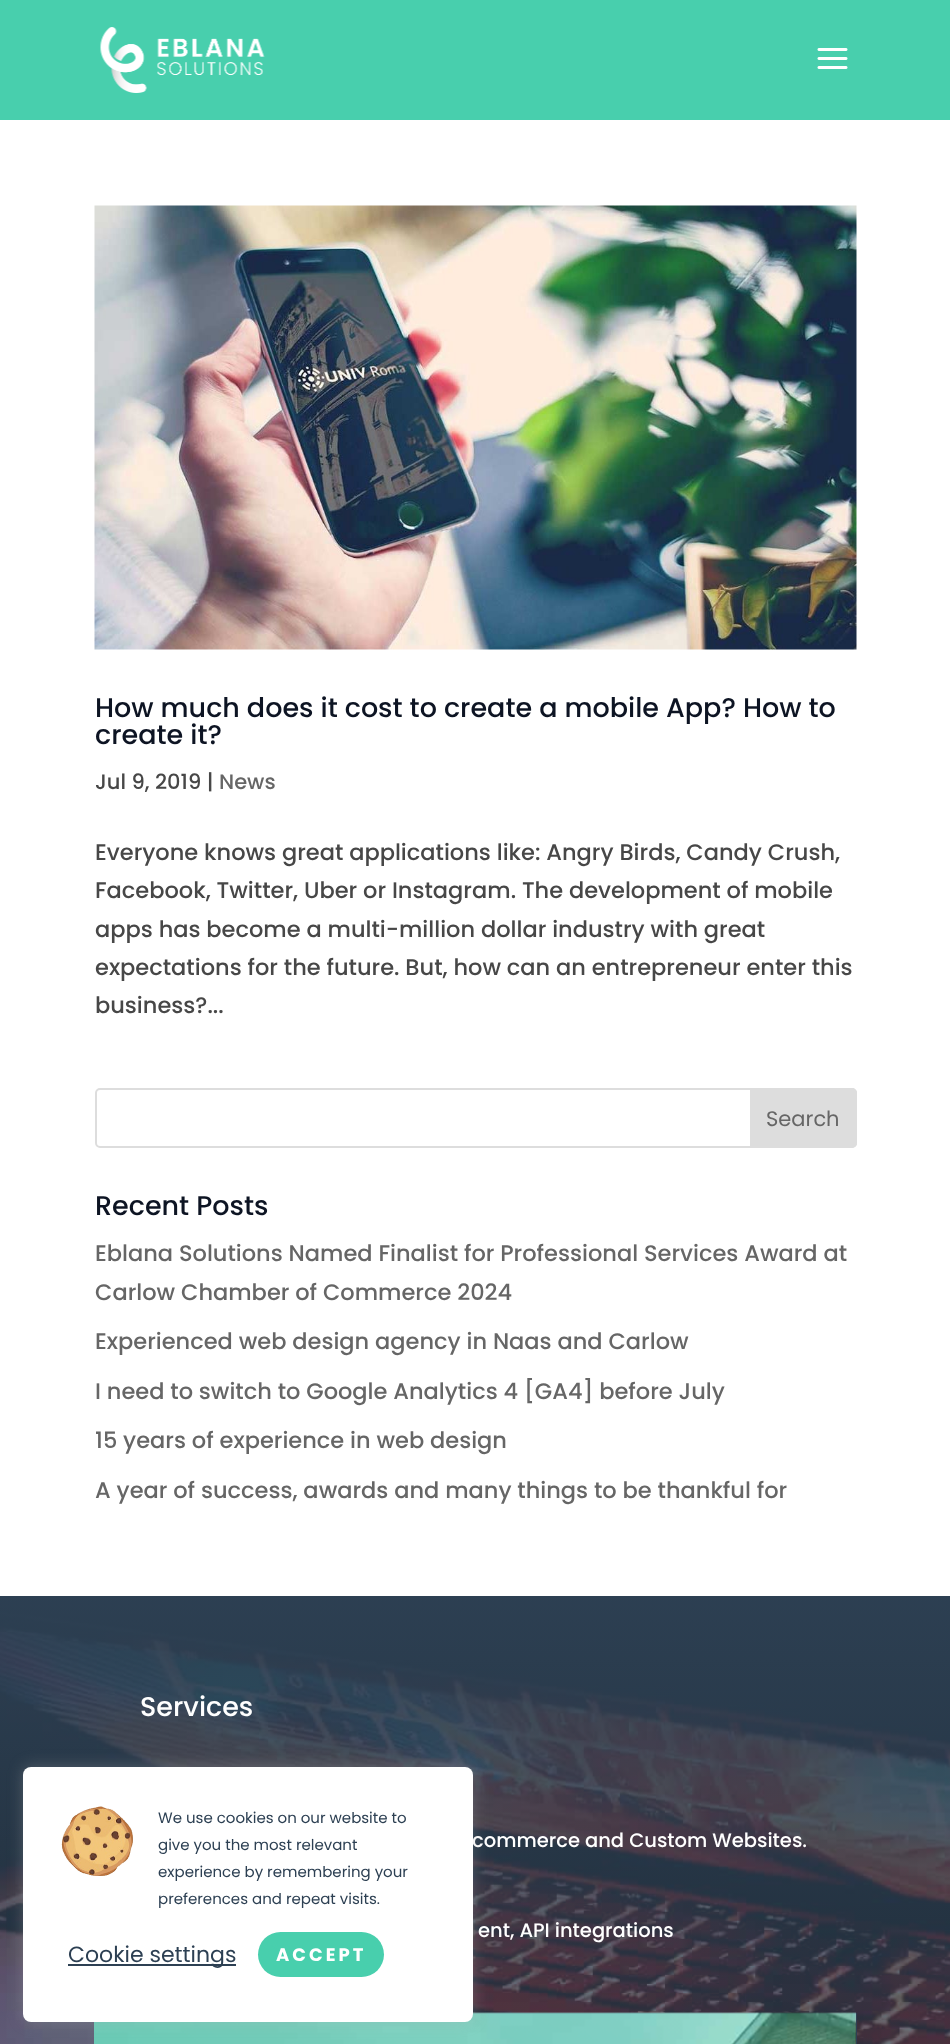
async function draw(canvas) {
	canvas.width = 950;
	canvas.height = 2044;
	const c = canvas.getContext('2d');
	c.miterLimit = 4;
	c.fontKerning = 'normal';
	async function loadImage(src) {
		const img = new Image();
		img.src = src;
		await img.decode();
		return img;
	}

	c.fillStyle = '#fff';
	c.fillRect(0, 0, 950, 2044);
	c.fillStyle = '#48cfad';
	c.fillRect(0, 0, 950, 120);
	c.drawImage(await loadImage('img1.png'), 100, 27, 165, 66);
	c.drawImage(await loadImage('img2.png'), 817, 48, 31, 21);
	c.drawImage(await loadImage('img3.png'), 94, 205, 763, 445);
	c.font = '500 27px Poppins';
	c.fillStyle = '#0d1423';
	c.fillText('How much does it cost to create a mobile App? How to', 95, 717);
	c.fillText('create it?', 95, 744);
	c.font = '500 21px Poppins';
	c.fillStyle = '#474747';
	c.fillText('Jul 9, 2019 |', 95, 789);
	c.fillStyle = '#666';
	c.fillText('News', 219, 789);
	c.font = '500 22.5px Poppins';
	c.fillStyle = '#474747';
	for (const [text, x, y] of [
		['Everyone knows great applications like: Angry Birds, Candy Crush,', 95, 860],
		['Facebook, Twitter, Uber or Instagram. The development of mobile', 95, 898],
		['apps has become a multi-million dollar industry with great', 95, 937],
		['expectations for the future. But, how can an entrepreneur enter this', 95, 975],
		['business?...', 95, 1013],
	]) {
		c.fillText(text, x, y);
	}
	c.beginPath();
	c.roundRect(96, 1089, 760, 58, 4);
	c.strokeStyle = '#ddd';
	c.lineWidth = 2;
	c.stroke();
	c.fillStyle = '#ddd';
	c.beginPath();
	c.roundRect(751, 1089, 105, 58, [0, 4, 4, 0]);
	c.fill();
	c.stroke();
	c.font = '21px Poppins';
	c.fillStyle = '#666';
	c.fillText('Search', 766, 1126);
	c.font = '500 27px Poppins';
	c.fillStyle = '#0d1423';
	c.fillText('Recent Posts', 95, 1215);
	c.font = '500 22.5px Poppins';
	c.fillStyle = '#666';
	for (const [text, x, y] of [
		['Eblana Solutions Named Finalist for Professional Services Award at', 95, 1261],
		['Carlow Chamber of Commerce 2024', 95, 1300],
		['Experienced web design agency in Naas and Carlow', 95, 1349],
		['I need to switch to Google Analytics 4 [GA4] before July', 95, 1399],
		['15 years of experience in web design', 95, 1448],
		['A year of success, awards and many things to be thankful for', 95, 1498],
	]) {
		c.fillText(text, x, y);
	}
	c.drawImage(await loadImage('img4.png'), 0, 1596, 950, 448);
	c.font = '500 27px Poppins';
	c.fillStyle = '#fff';
	c.fillText('Services', 140, 1716);
	c.font = '500 19.5px Poppins';
	c.fillText('commerce and Custom Websites.', 472, 1847);
	c.fillText('ent, API integrations', 478, 1937);
	c.fillStyle = '#2d4053';
	c.fillRect(473, 2013, 384, 31);
	c.drawImage(await loadImage('img5.png'), 94, 2012, 762, 32);
	c.fillStyle = '#acabab4d';
	c.filter = 'blur(7.5px)';
	c.beginPath();
	c.roundRect(23, 1766, 450, 255, 8);
	c.fill();
	c.filter = 'none';
	c.fillStyle = '#fff';
	c.beginPath();
	c.roundRect(23, 1767, 450, 255, 8);
	c.fill();
	c.drawImage(await loadImage('img6.png'), 61, 1806, 72, 70);
	c.font = '15px Poppins';
	c.fillStyle = '#2d4053';
	for (const [text, x, y] of [
		['We use cookies on our website to', 158, 1823],
		['give you the most relevant', 158, 1850],
		['experience by remembering your', 158, 1877],
		['preferences and repeat visits.', 158, 1904],
	]) {
		c.fillText(text, x, y);
	}
	c.fillRect(68, 1964, 168, 2);
	c.font = '22px Poppins';
	c.fillText('Cookie settings', 68, 1962);
	c.fillStyle = '#48cfad';
	c.beginPath();
	c.roundRect(258, 1932, 126, 45, 22.5);
	c.fill();
	c.letterSpacing = '3px';
	c.font = 'bold 18px Poppins';
	c.fillStyle = '#fff';
	c.fillText('ACCEPT', 276, 1961);
}

draw(document.querySelector('canvas'));
